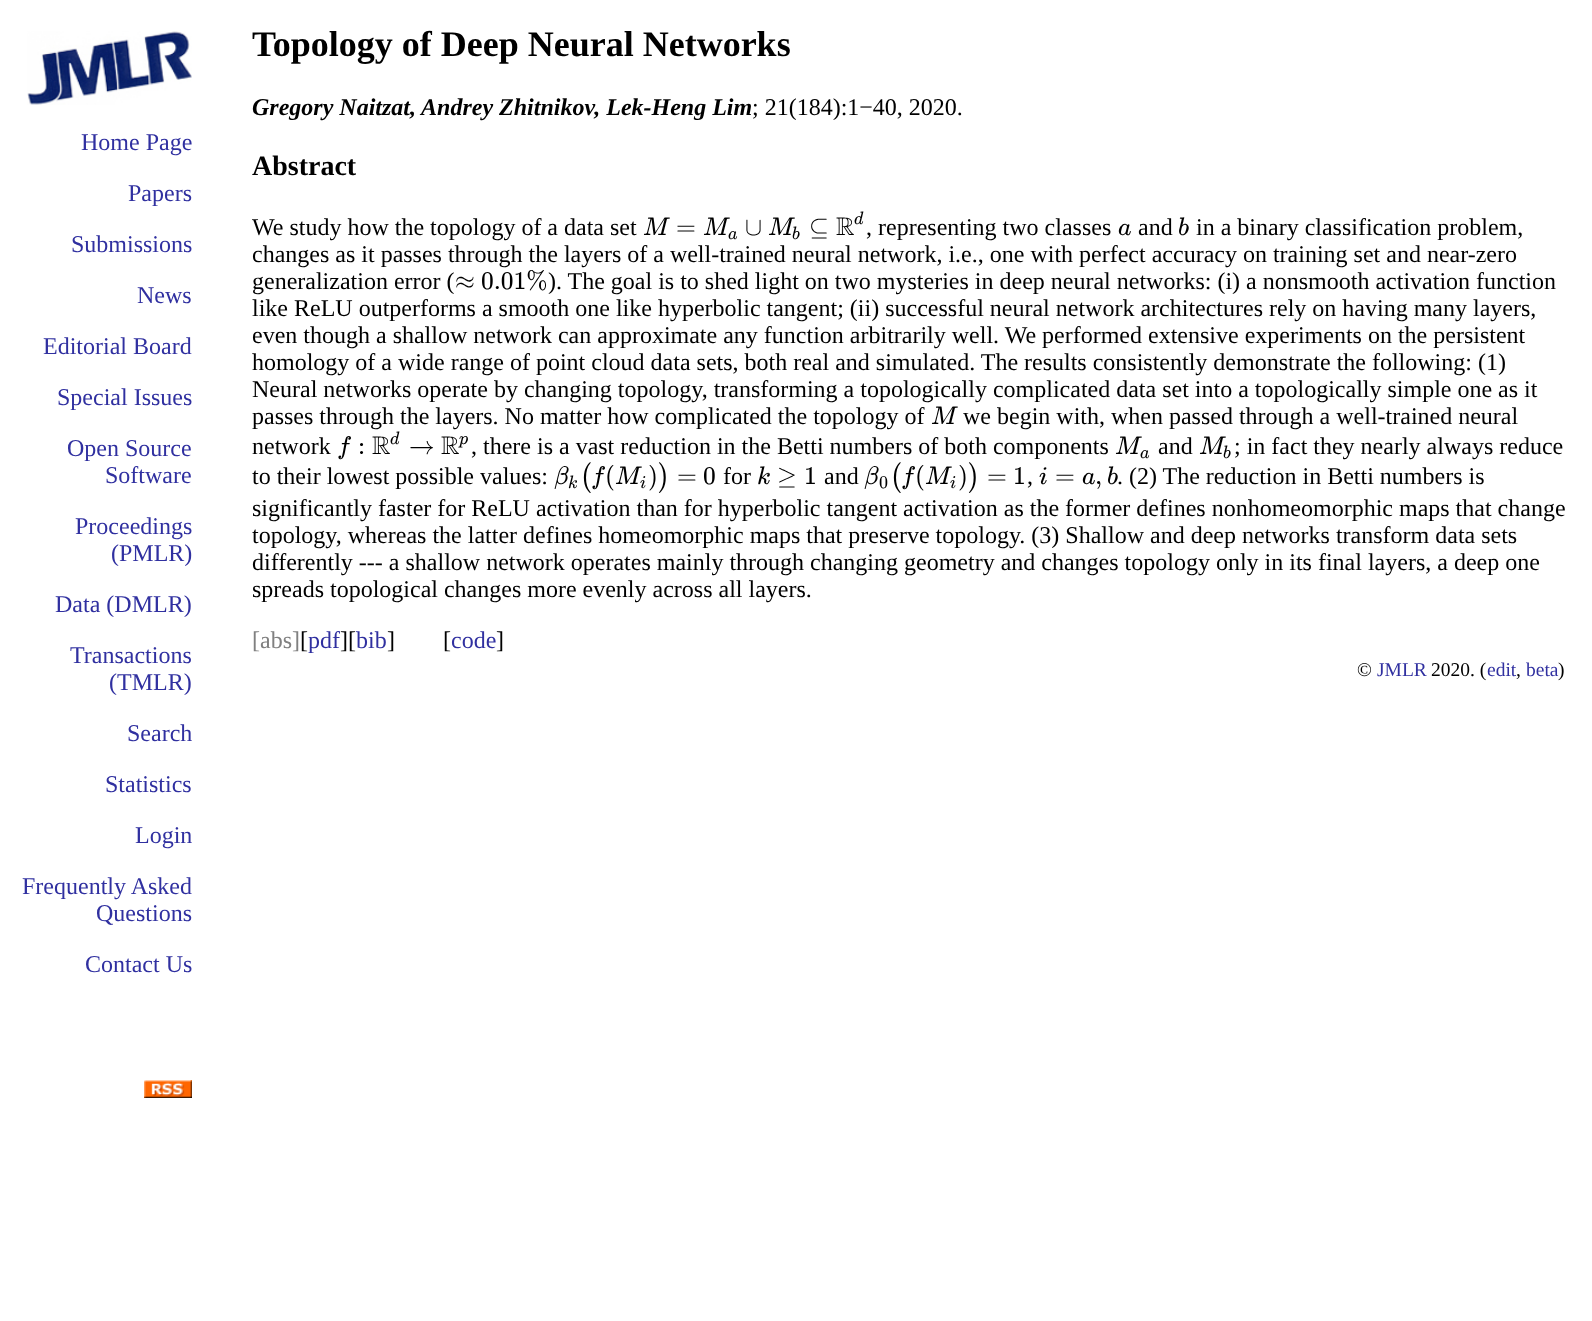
async function draw(canvas) {
	canvas.width = 1592;
	canvas.height = 1321;
	const c = canvas.getContext('2d');
	c.miterLimit = 4;
	c.fontKerning = 'normal';
	async function loadImage(src) {
		const img = new Image();
		img.src = src;
		await img.decode();
		return img;
	}

	c.fillStyle = '#fff';
	c.fillRect(0, 0, 1592, 1321);
	c.drawImage(await loadImage('img1.png'), 27, 31, 165, 74);
	c.font = '24px Liberation Serif';
	c.fillStyle = '#3030a0';
	for (const [text, x, y] of [
		['Home Page', 81, 150],
		['Papers', 128, 201],
		['Submissions', 71, 252],
		['News', 137, 303],
		['Editorial Board', 43, 354],
		['Special Issues', 57, 405],
		['Open Source', 67, 456],
		['Software', 105, 483],
		['Proceedings', 75, 534],
		['(PMLR)', 111, 561],
		['Data (DMLR)', 55, 612],
		['Transactions', 70, 663],
		['(TMLR)', 109, 690],
		['Search', 127, 741],
		['Statistics', 105, 792],
		['Login', 135, 843],
		['Frequently Asked', 22, 894],
		['Questions', 96, 921],
		['Contact Us', 85, 972],
	]) {
		c.fillText(text, x, y);
	}
	c.drawImage(await loadImage('img2.png'), 144, 1080, 48, 18);
	c.font = 'bold 36px Liberation Serif';
	c.fillStyle = '#000';
	c.fillText('Topology of Deep Neural Networks', 252, 56);
	c.font = 'italic bold 24px Liberation Serif';
	c.fillText('Gregory Naitzat, Andrey Zhitnikov, Lek-Heng Lim', 252, 115);
	c.font = '24px Liberation Serif';
	c.fillText('; 21(184):1−40, 2020.', 752, 115);
	c.font = 'bold 28px Liberation Serif';
	c.fillText('Abstract', 252, 175);
	c.font = '24px Liberation Serif';
	c.fillText('We study how the topology of a data set', 252, 235);
	c.font = 'italic 25.5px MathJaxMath';
	c.fillText('M', 643, 235);
	c.font = '25.5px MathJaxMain';
	c.fillText('=', 676, 235);
	c.font = 'italic 25.5px MathJaxMath';
	c.fillText('M', 703, 235);
	c.font = 'italic 18px MathJaxMath';
	c.fillText('a', 728, 239);
	c.font = '25.5px MathJaxMain';
	c.fillText('∪', 745, 235);
	c.font = 'italic 25.5px MathJaxMath';
	c.fillText('M', 768, 235);
	c.font = 'italic 18px MathJaxMath';
	c.fillText('b', 792, 239);
	c.font = '25.5px MathJaxMain';
	c.fillText('⊆', 809, 235);
	c.font = '25.5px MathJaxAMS';
	c.fillText('R', 836, 235);
	c.font = 'italic 18px MathJaxMath';
	c.fillText('d', 854, 224);
	c.font = '24px Liberation Serif';
	c.fillText(', representing two classes', 866, 235);
	c.font = 'italic 25.5px MathJaxMath';
	c.fillText('a', 1118, 235);
	c.font = '24px Liberation Serif';
	c.fillText('and', 1138, 235);
	c.font = 'italic 25.5px MathJaxMath';
	c.fillText('b', 1178, 235);
	c.font = '24px Liberation Serif';
	for (const [text, x, y] of [
		['in a binary classification problem,', 1196, 235],
		['changes as it passes through the layers of a well-trained neural network, i.e., one with perfect accuracy on training set and near-zero', 252, 262],
		['generalization error (', 252, 289],
	]) {
		c.fillText(text, x, y);
	}
	c.font = '25.5px MathJaxMain';
	c.fillText('≈', 455, 289);
	c.fillText('0.01%', 481, 289);
	c.font = '24px Liberation Serif';
	for (const [text, x, y] of [
		['). The goal is to shed light on two mysteries in deep neural networks: (i) a nonsmooth activation function', 548, 289],
		['like ReLU outperforms a smooth one like hyperbolic tangent; (ii) successful neural network architectures rely on having many layers,', 252, 316],
		['even though a shallow network can approximate any function arbitrarily well. We performed extensive experiments on the persistent', 252, 343],
		['homology of a wide range of point cloud data sets, both real and simulated. The results consistently demonstrate the following: (1)', 252, 370],
		['Neural networks operate by changing topology, transforming a topologically complicated data set into a topologically simple one as it', 252, 397],
		['passes through the layers. No matter how complicated the topology of', 252, 424],
	]) {
		c.fillText(text, x, y);
	}
	c.font = 'italic 25.5px MathJaxMath';
	c.fillText('M', 931, 424);
	c.font = '24px Liberation Serif';
	c.fillText('we begin with, when passed through a well-trained neural', 963, 424);
	c.fillText('network', 252, 454);
	c.font = 'italic 25.5px MathJaxMath';
	c.fillText('f', 337, 454);
	c.font = '25.5px MathJaxMain';
	c.fillText(':', 358, 454);
	c.font = '25.5px MathJaxAMS';
	c.fillText('R', 372, 454);
	c.font = 'italic 18px MathJaxMath';
	c.fillText('d', 390, 444);
	c.font = '25.5px MathJaxMain';
	c.fillText('→', 409, 454);
	c.font = '25.5px MathJaxAMS';
	c.fillText('R', 441, 454);
	c.font = 'italic 18px MathJaxMath';
	c.fillText('p', 459, 444);
	c.font = '24px Liberation Serif';
	c.fillText(', there is a vast reduction in the Betti numbers of both components', 471, 454);
	c.font = 'italic 25.5px MathJaxMath';
	c.fillText('M', 1115, 454);
	c.font = 'italic 18px MathJaxMath';
	c.fillText('a', 1140, 458);
	c.font = '24px Liberation Serif';
	c.fillText('and', 1158, 454);
	c.font = 'italic 25.5px MathJaxMath';
	c.fillText('M', 1199, 454);
	c.font = 'italic 18px MathJaxMath';
	c.fillText('b', 1223, 458);
	c.font = '24px Liberation Serif';
	c.fillText('; in fact they nearly always reduce', 1234, 454);
	c.fillText('to their lowest possible values:', 252, 484);
	c.font = 'italic 25.5px MathJaxMath';
	c.fillText('β', 554, 484);
	c.font = 'italic 18px MathJaxMath';
	c.fillText('k', 568, 488);
	c.font = '25.5px "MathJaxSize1"';
	c.fillText('(', 580, 484);
	c.font = 'italic 25.5px MathJaxMath';
	c.fillText('f', 591, 484);
	c.font = '25.5px MathJaxMain';
	c.fillText('(', 605, 484);
	c.font = 'italic 25.5px MathJaxMath';
	c.fillText('M', 615, 484);
	c.font = 'italic 18px MathJaxMath';
	c.fillText('i', 640, 488);
	c.font = '25.5px MathJaxMain';
	c.fillText(')', 648, 484);
	c.font = '25.5px "MathJaxSize1"';
	c.fillText(')', 658, 484);
	c.font = '25.5px MathJaxMain';
	c.fillText('=', 677, 484);
	c.fillText('0', 703, 484);
	c.font = '24px Liberation Serif';
	c.fillText('for', 723, 484);
	c.font = 'italic 25.5px MathJaxMath';
	c.fillText('k', 757, 484);
	c.font = '25.5px MathJaxMain';
	c.fillText('≥', 777, 484);
	c.fillText('1', 804, 484);
	c.font = '24px Liberation Serif';
	c.fillText('and', 824, 484);
	c.font = 'italic 25.5px MathJaxMath';
	c.fillText('β', 864, 484);
	c.font = '18px MathJaxMain';
	c.fillText('0', 879, 488);
	c.font = '25.5px "MathJaxSize1"';
	c.fillText('(', 890, 484);
	c.font = 'italic 25.5px MathJaxMath';
	c.fillText('f', 901, 484);
	c.font = '25.5px MathJaxMain';
	c.fillText('(', 915, 484);
	c.font = 'italic 25.5px MathJaxMath';
	c.fillText('M', 925, 484);
	c.font = 'italic 18px MathJaxMath';
	c.fillText('i', 950, 488);
	c.font = '25.5px MathJaxMain';
	c.fillText(')', 958, 484);
	c.font = '25.5px "MathJaxSize1"';
	c.fillText(')', 968, 484);
	c.font = '25.5px MathJaxMain';
	c.fillText('=', 987, 484);
	c.fillText('1', 1013, 484);
	c.font = '24px Liberation Serif';
	c.fillText(',', 1027, 484);
	c.font = 'italic 25.5px MathJaxMath';
	c.fillText('i', 1039, 484);
	c.font = '25.5px MathJaxMain';
	c.fillText('=', 1055, 484);
	c.font = 'italic 25.5px MathJaxMath';
	c.fillText('a', 1082, 484);
	c.fillText('b', 1107, 484);
	c.font = '25.5px MathJaxMain';
	c.fillText(',', 1095, 484);
	c.font = '24px Liberation Serif';
	for (const [text, x, y] of [
		['. (2) The reduction in Betti numbers is', 1117, 484],
		['significantly faster for ReLU activation than for hyperbolic tangent activation as the former defines nonhomeomorphic maps that change', 252, 516],
		['topology, whereas the latter defines homeomorphic maps that preserve topology. (3) Shallow and deep networks transform data sets', 252, 543],
		['differently --- a shallow network operates mainly through changing geometry and changes topology only in its final layers, a deep one', 252, 570],
		['spreads topological changes more evenly across all layers.', 252, 597],
	]) {
		c.fillText(text, x, y);
	}
	c.fillStyle = '#808080';
	c.fillText('[abs]', 252, 648);
	c.fillStyle = '#000';
	c.fillText('[', 300, 648);
	c.fillStyle = '#3030a0';
	c.fillText('pdf', 308, 648);
	c.fillStyle = '#000';
	c.fillText('][', 340, 648);
	c.fillStyle = '#3030a0';
	c.fillText('bib', 356, 648);
	c.fillStyle = '#000';
	c.fillText(']', 387, 648);
	c.fillText('[', 443, 648);
	c.fillStyle = '#3030a0';
	c.fillText('code', 451, 648);
	c.fillStyle = '#000';
	c.fillText(']', 496, 648);
	c.font = '19.5px Liberation Serif';
	c.fillText('©', 1357, 676);
	c.fillStyle = '#3030a0';
	c.fillText('JMLR', 1377, 676);
	c.fillStyle = '#000';
	c.fillText('2020. (', 1431, 676);
	c.fillStyle = '#3030a0';
	c.fillText('edit', 1487, 676);
	c.fillStyle = '#000';
	c.fillText(',', 1516, 676);
	c.fillStyle = '#3030a0';
	c.fillText('beta', 1526, 676);
	c.fillStyle = '#000';
	c.fillText(')', 1558, 676);
}

draw(document.querySelector('canvas'));
